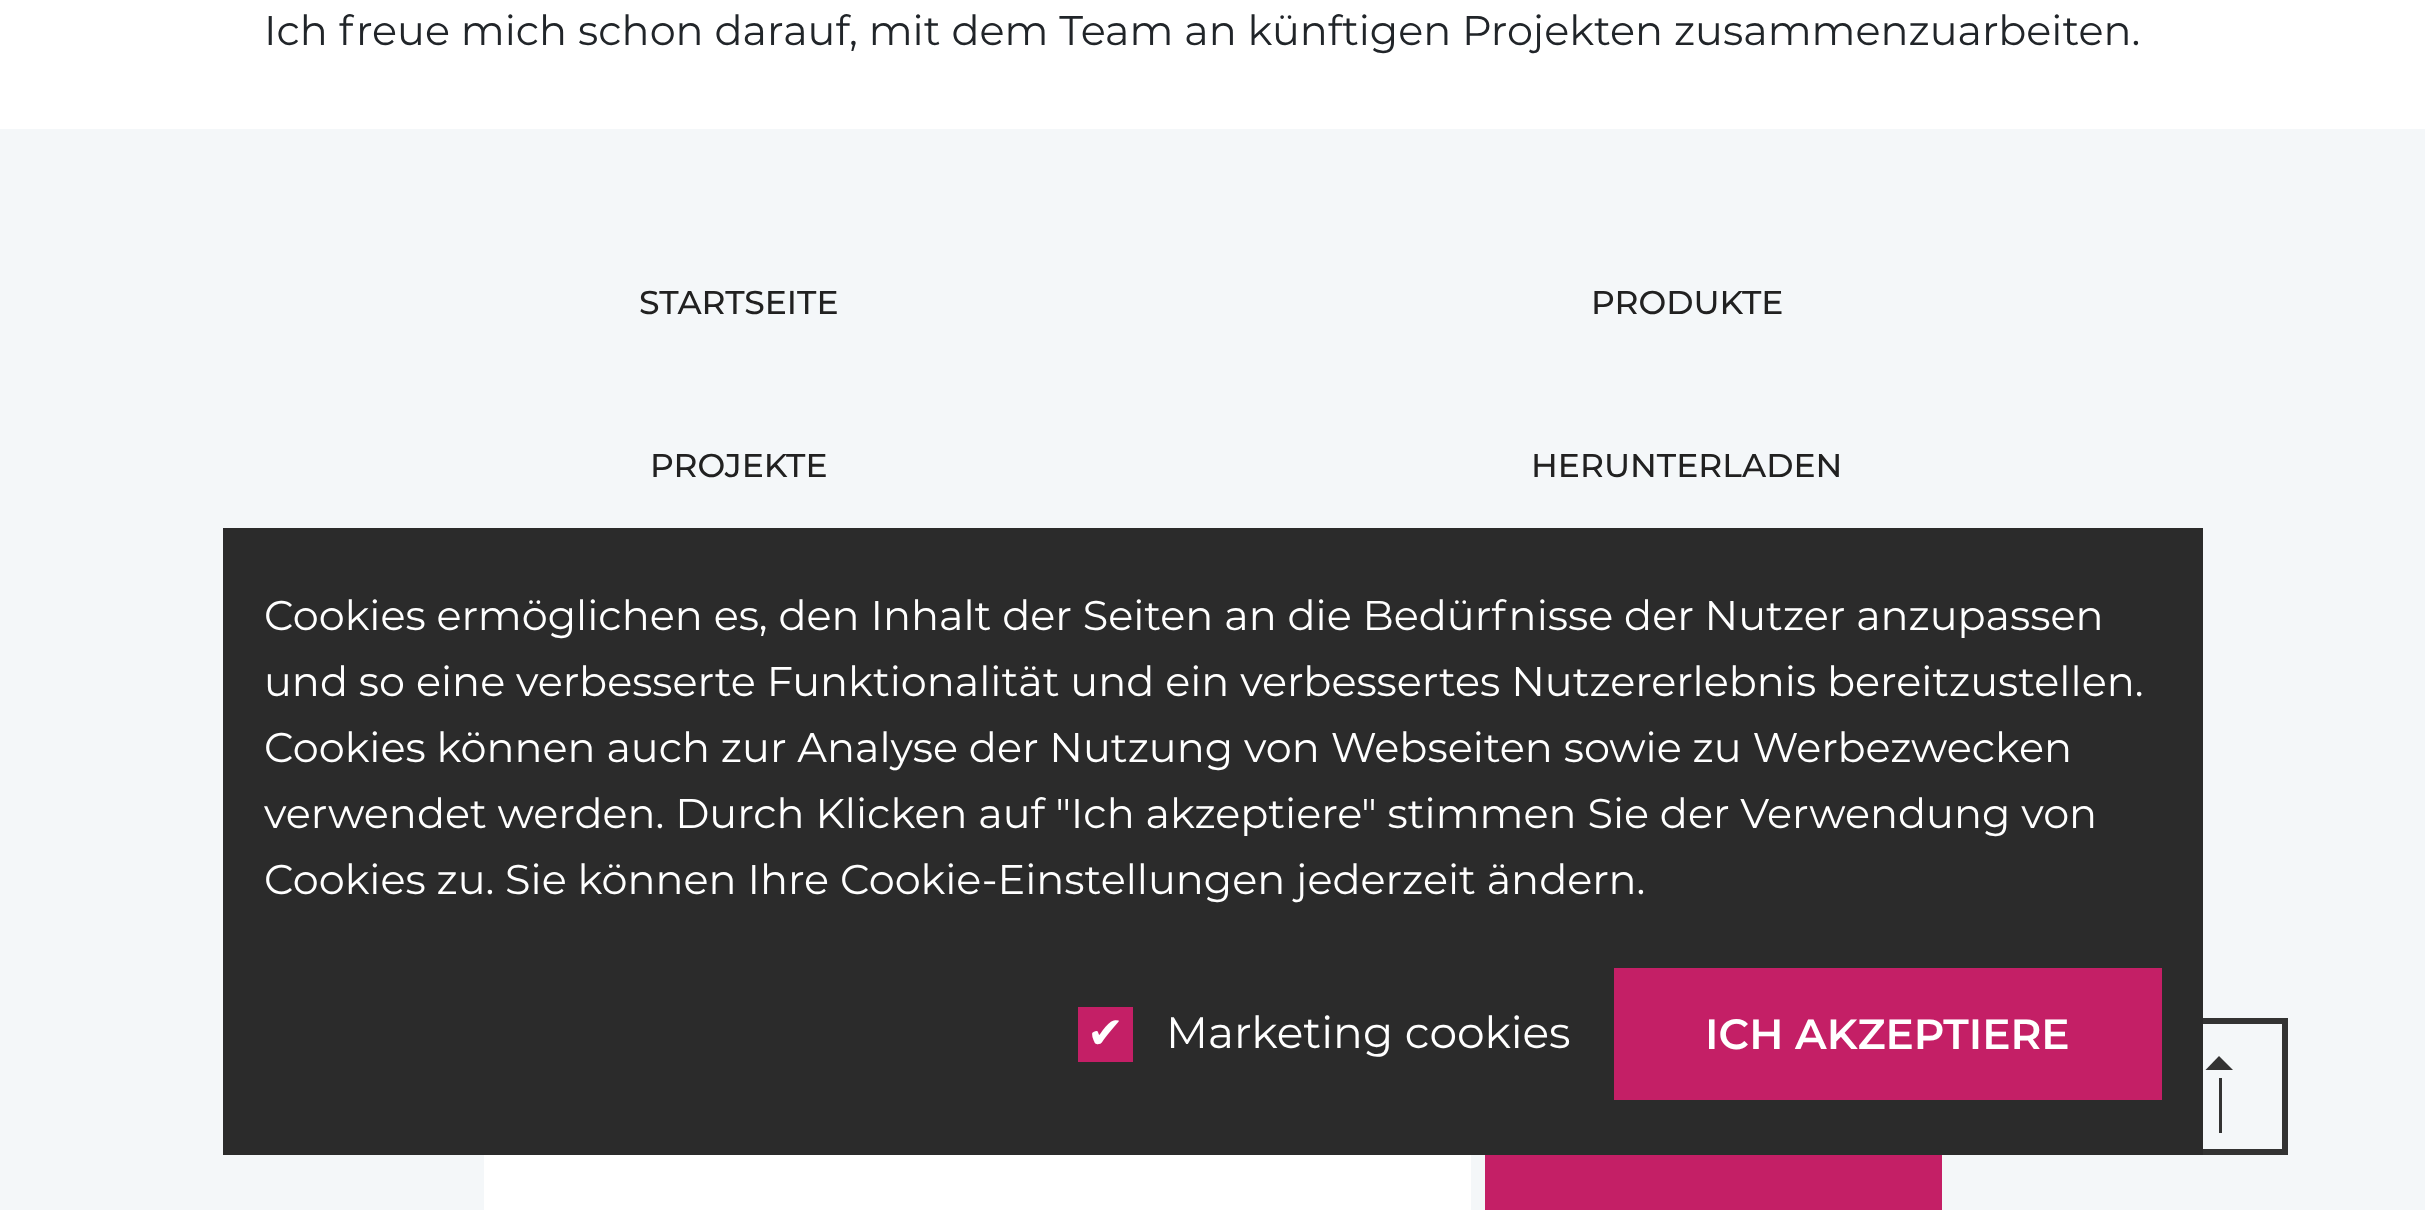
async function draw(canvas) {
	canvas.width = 2425;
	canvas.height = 1210;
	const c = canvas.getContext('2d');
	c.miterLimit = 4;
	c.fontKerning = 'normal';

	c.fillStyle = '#fff';
	c.fillRect(0, 0, 2425, 1210);
	c.font = '41.4px Montserrat';
	c.fillStyle = '#212529';
	c.fillText('Ich freue mich schon darauf, mit dem Team an künftigen Projekten zusammenzuarbeiten.', 264, 45);
	c.fillStyle = '#f4f7f9';
	c.fillRect(0, 129, 2425, 1081);
	c.font = '500 33px Montserrat';
	c.fillStyle = '#212121';
	for (const [text, x, y] of [
		['STARTSEITE', 639, 314],
		['PRODUKTE', 1591, 314],
		['PROJEKTE', 650, 477],
		['HERUNTERLADEN', 1531, 477],
	]) {
		c.fillText(text, x, y);
	}
	c.fillStyle = '#fff';
	c.fillRect(484, 1155, 987, 55);
	c.fillStyle = '#c41f66';
	c.fillRect(1485, 1155, 457, 55);
	c.strokeStyle = '#333';
	c.lineWidth = 6;
	c.strokeRect(2154, 1021, 131, 131);
	c.fillStyle = '#333';
	c.beginPath();
	c.moveTo(2233, 1070);
	c.lineTo(2205.5, 1070);
	c.lineTo(2219, 1056);
	c.closePath();
	c.fill();
	c.fillRect(2219, 1078, 3, 55);
	c.fillStyle = '#2b2b2b';
	c.fillRect(223, 528, 1980, 627);
	c.font = '41.4px Montserrat';
	c.fillStyle = '#fff';
	for (const [text, x, y] of [
		['Cookies ermöglichen es, den Inhalt der Seiten an die Bedürfnisse der Nutzer anzupassen', 264, 630],
		['und so eine verbesserte Funktionalität und ein verbessertes Nutzererlebnis bereitzustellen.', 264, 696],
		['Cookies können auch zur Analyse der Nutzung von Webseiten sowie zu Werbezwecken', 264, 762],
		['verwendet werden. Durch Klicken auf "Ich akzeptiere" stimmen Sie der Verwendung von', 264, 828],
		['Cookies zu. Sie können Ihre Cookie-Einstellungen jederzeit ändern.', 264, 894],
	]) {
		c.fillText(text, x, y);
	}
	c.fillStyle = '#c41f66';
	c.fillRect(1078, 1007, 55, 55);
	c.font = '44px DejaVu Sans';
	c.fillStyle = '#fff';
	c.fillText('✔', 1087, 1048);
	c.font = '44px Montserrat';
	c.fillText('Marketing cookies', 1166, 1048);
	c.fillStyle = '#c41f66';
	c.fillRect(1614, 968, 548, 132);
	c.font = '600 42.25px Montserrat';
	c.fillStyle = '#fff';
	c.fillText('ICH AKZEPTIERE', 1705, 1049);
}

draw(document.querySelector('canvas'));
